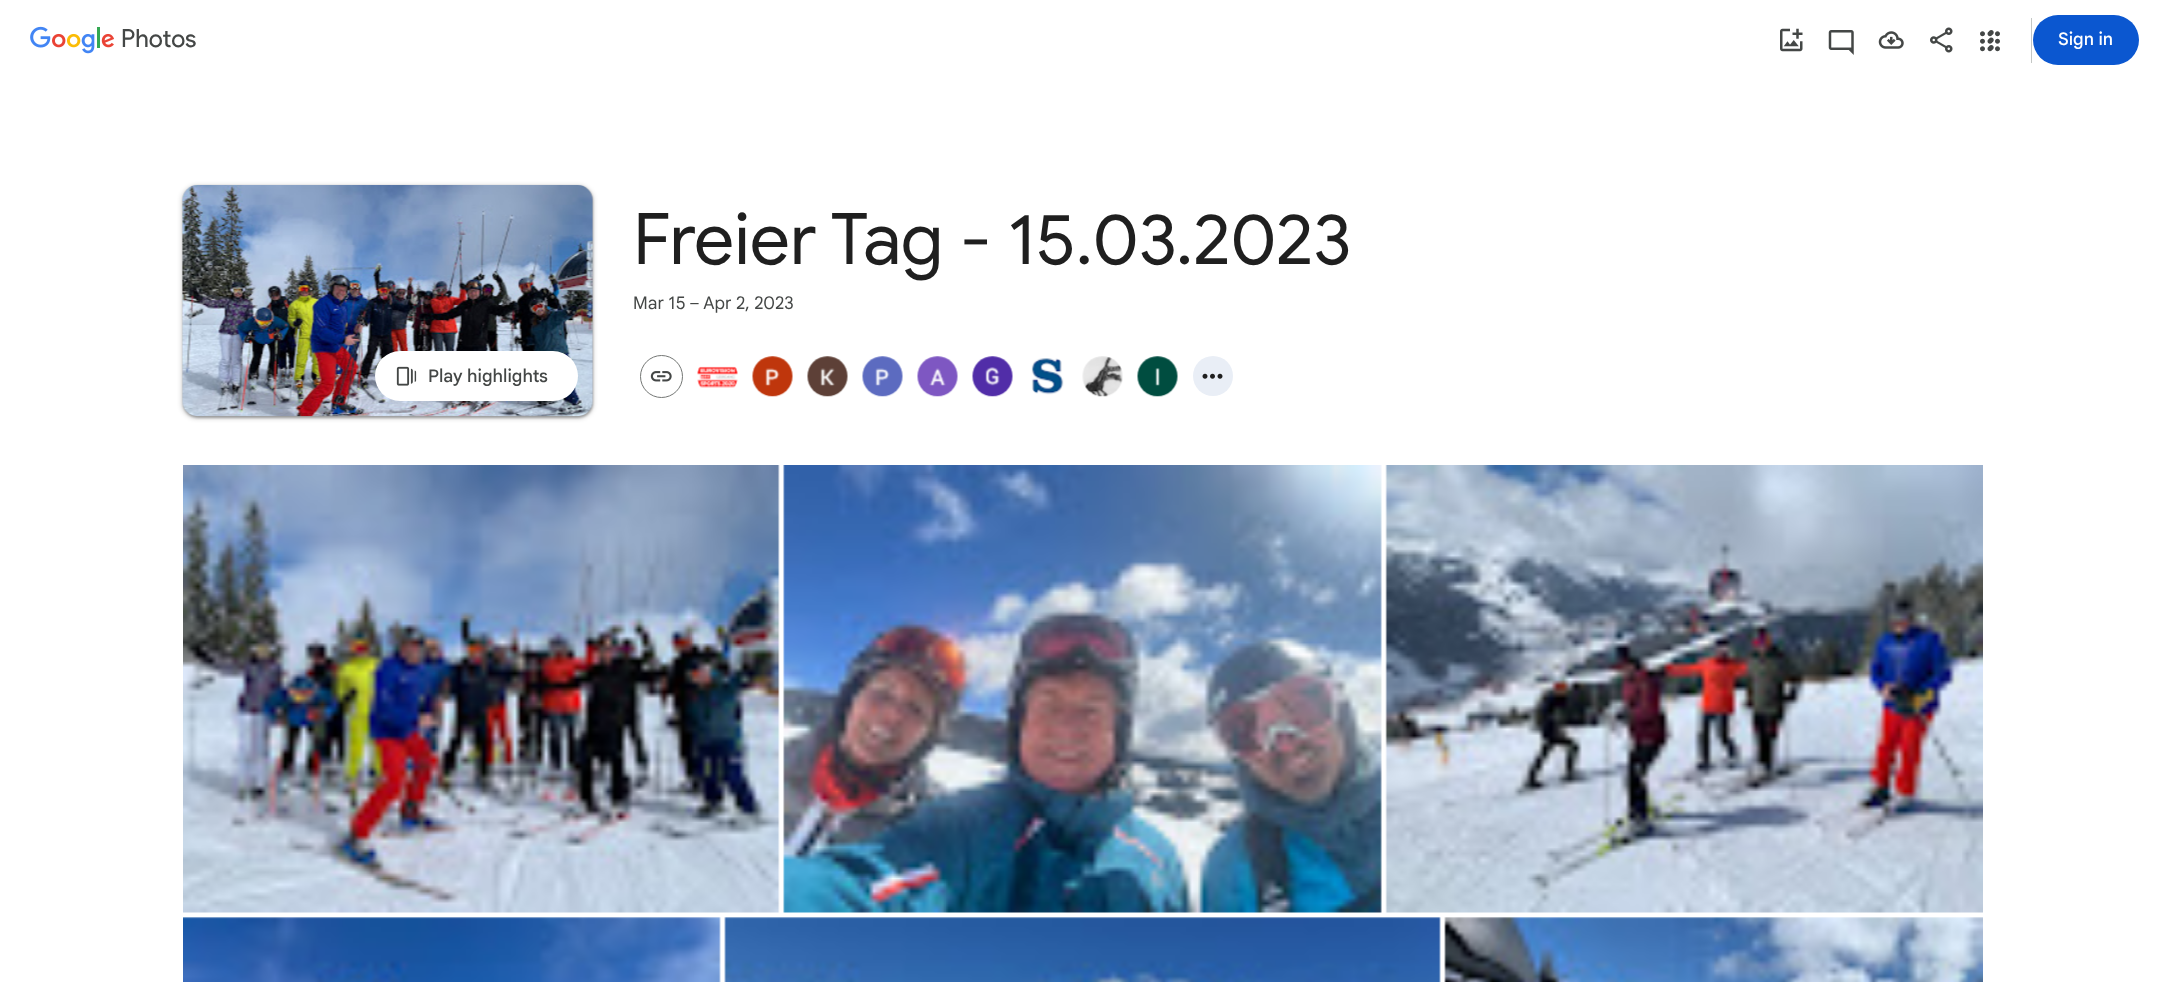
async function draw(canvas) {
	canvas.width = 2183;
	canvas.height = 982;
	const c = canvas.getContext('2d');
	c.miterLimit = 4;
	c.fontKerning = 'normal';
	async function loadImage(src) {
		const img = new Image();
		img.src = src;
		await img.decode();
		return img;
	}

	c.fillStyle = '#fff';
	c.fillRect(0, 0, 2183, 982);
	c.drawImage(await loadImage('img1.png'), 30, 26, 84, 28);
	c.font = '25px Product Sans';
	c.fillStyle = '#444746';
	c.fillText('Photos', 121, 47);
	c.drawImage(await loadImage('img2.png'), 1780, 28, 23, 24);
	c.drawImage(await loadImage('img3.png'), 1828, 30, 26, 25);
	c.drawImage(await loadImage('img4.png'), 1878, 31, 26, 18);
	c.drawImage(await loadImage('img5.png'), 1930, 27, 23, 26);
	c.drawImage(await loadImage('img6.png'), 1988, 30, 6, 20);
	c.fillStyle = '#c4c7c5';
	c.fillRect(2031, 18, 1, 45);
	c.font = '71.25px Google Sans';
	c.fillStyle = '#1f1f1f';
	c.fillText('Freier Tag - 15.03.2023', 633, 264);
	c.font = '17.5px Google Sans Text';
	c.fillStyle = '#444746';
	c.fillText('Mar 15 – Apr 2, 2023', 633, 309);
	c.beginPath();
	c.arc(661.5, 376.5, 21, 0, 2 * Math.PI);
	c.strokeStyle = '#747775';
	c.stroke();
	c.drawImage(await loadImage('img7.png'), 650, 371, 22, 11);
	c.drawImage(await loadImage('img8.png'), 697, 366, 41, 22);
	c.drawImage(await loadImage('img9.png'), 752, 356, 41, 41);
	c.drawImage(await loadImage('img10.png'), 807, 356, 41, 41);
	c.drawImage(await loadImage('img11.png'), 862, 356, 41, 41);
	c.drawImage(await loadImage('img12.png'), 917, 356, 41, 41);
	c.drawImage(await loadImage('img13.png'), 972, 356, 41, 41);
	c.drawImage(await loadImage('img14.png'), 1031, 358, 33, 37);
	c.drawImage(await loadImage('img15.png'), 1082, 356, 41, 41);
	c.drawImage(await loadImage('img16.png'), 1137, 356, 41, 41);
	c.fillStyle = '#e9eef6';
	c.beginPath();
	c.arc(1213, 376, 20, 0, 2 * Math.PI);
	c.fill();
	c.drawImage(await loadImage('img17.png'), 1202, 373, 21, 6);
	c.fillStyle = '#f8fafd';
	c.beginPath();
	c.roundRect(183, 185, 410, 231, 15);
	c.fill();
	c.fillStyle = '#00000026';
	c.filter = 'blur(2px)';
	c.beginPath();
	c.roundRect(181, 185, 413, 234, 16);
	c.fill();
	c.filter = 'none';
	c.fillStyle = '#0000004d';
	c.filter = 'blur(1px)';
	c.beginPath();
	c.roundRect(183, 186, 410, 232, 15);
	c.fill();
	c.filter = 'none';
	c.drawImage(await loadImage('img18.png'), 182, 185, 411, 232);
	c.fillStyle = '#fff';
	c.beginPath();
	c.roundRect(375, 351, 203, 50, 25);
	c.fill();
	c.drawImage(await loadImage('img19.png'), 396, 366, 21, 20);
	c.font = '500 17.5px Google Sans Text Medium';
	c.fillStyle = '#444746';
	c.fillText('Play highlights', 428, 382);
	c.drawImage(await loadImage('img20.png'), 183, 465, 597, 448);
	c.drawImage(await loadImage('img21.png'), 783, 465, 599, 448);
	c.drawImage(await loadImage('img22.png'), 1385, 465, 598, 448);
	c.drawImage(await loadImage('img23.png'), 183, 917, 538, 65);
	c.drawImage(await loadImage('img24.png'), 724, 917, 717, 65);
	c.drawImage(await loadImage('img25.png'), 1444, 917, 539, 65);
	c.drawImage(await loadImage('img26.png'), 1980, 31, 20, 21);
	c.fillStyle = '#0b57d0';
	c.beginPath();
	c.roundRect(2033, 15, 106, 50, 25);
	c.fill();
	c.fillStyle = '#fff';
	c.fillText('Sign in', 2058, 45);
}

draw(document.querySelector('canvas'));
